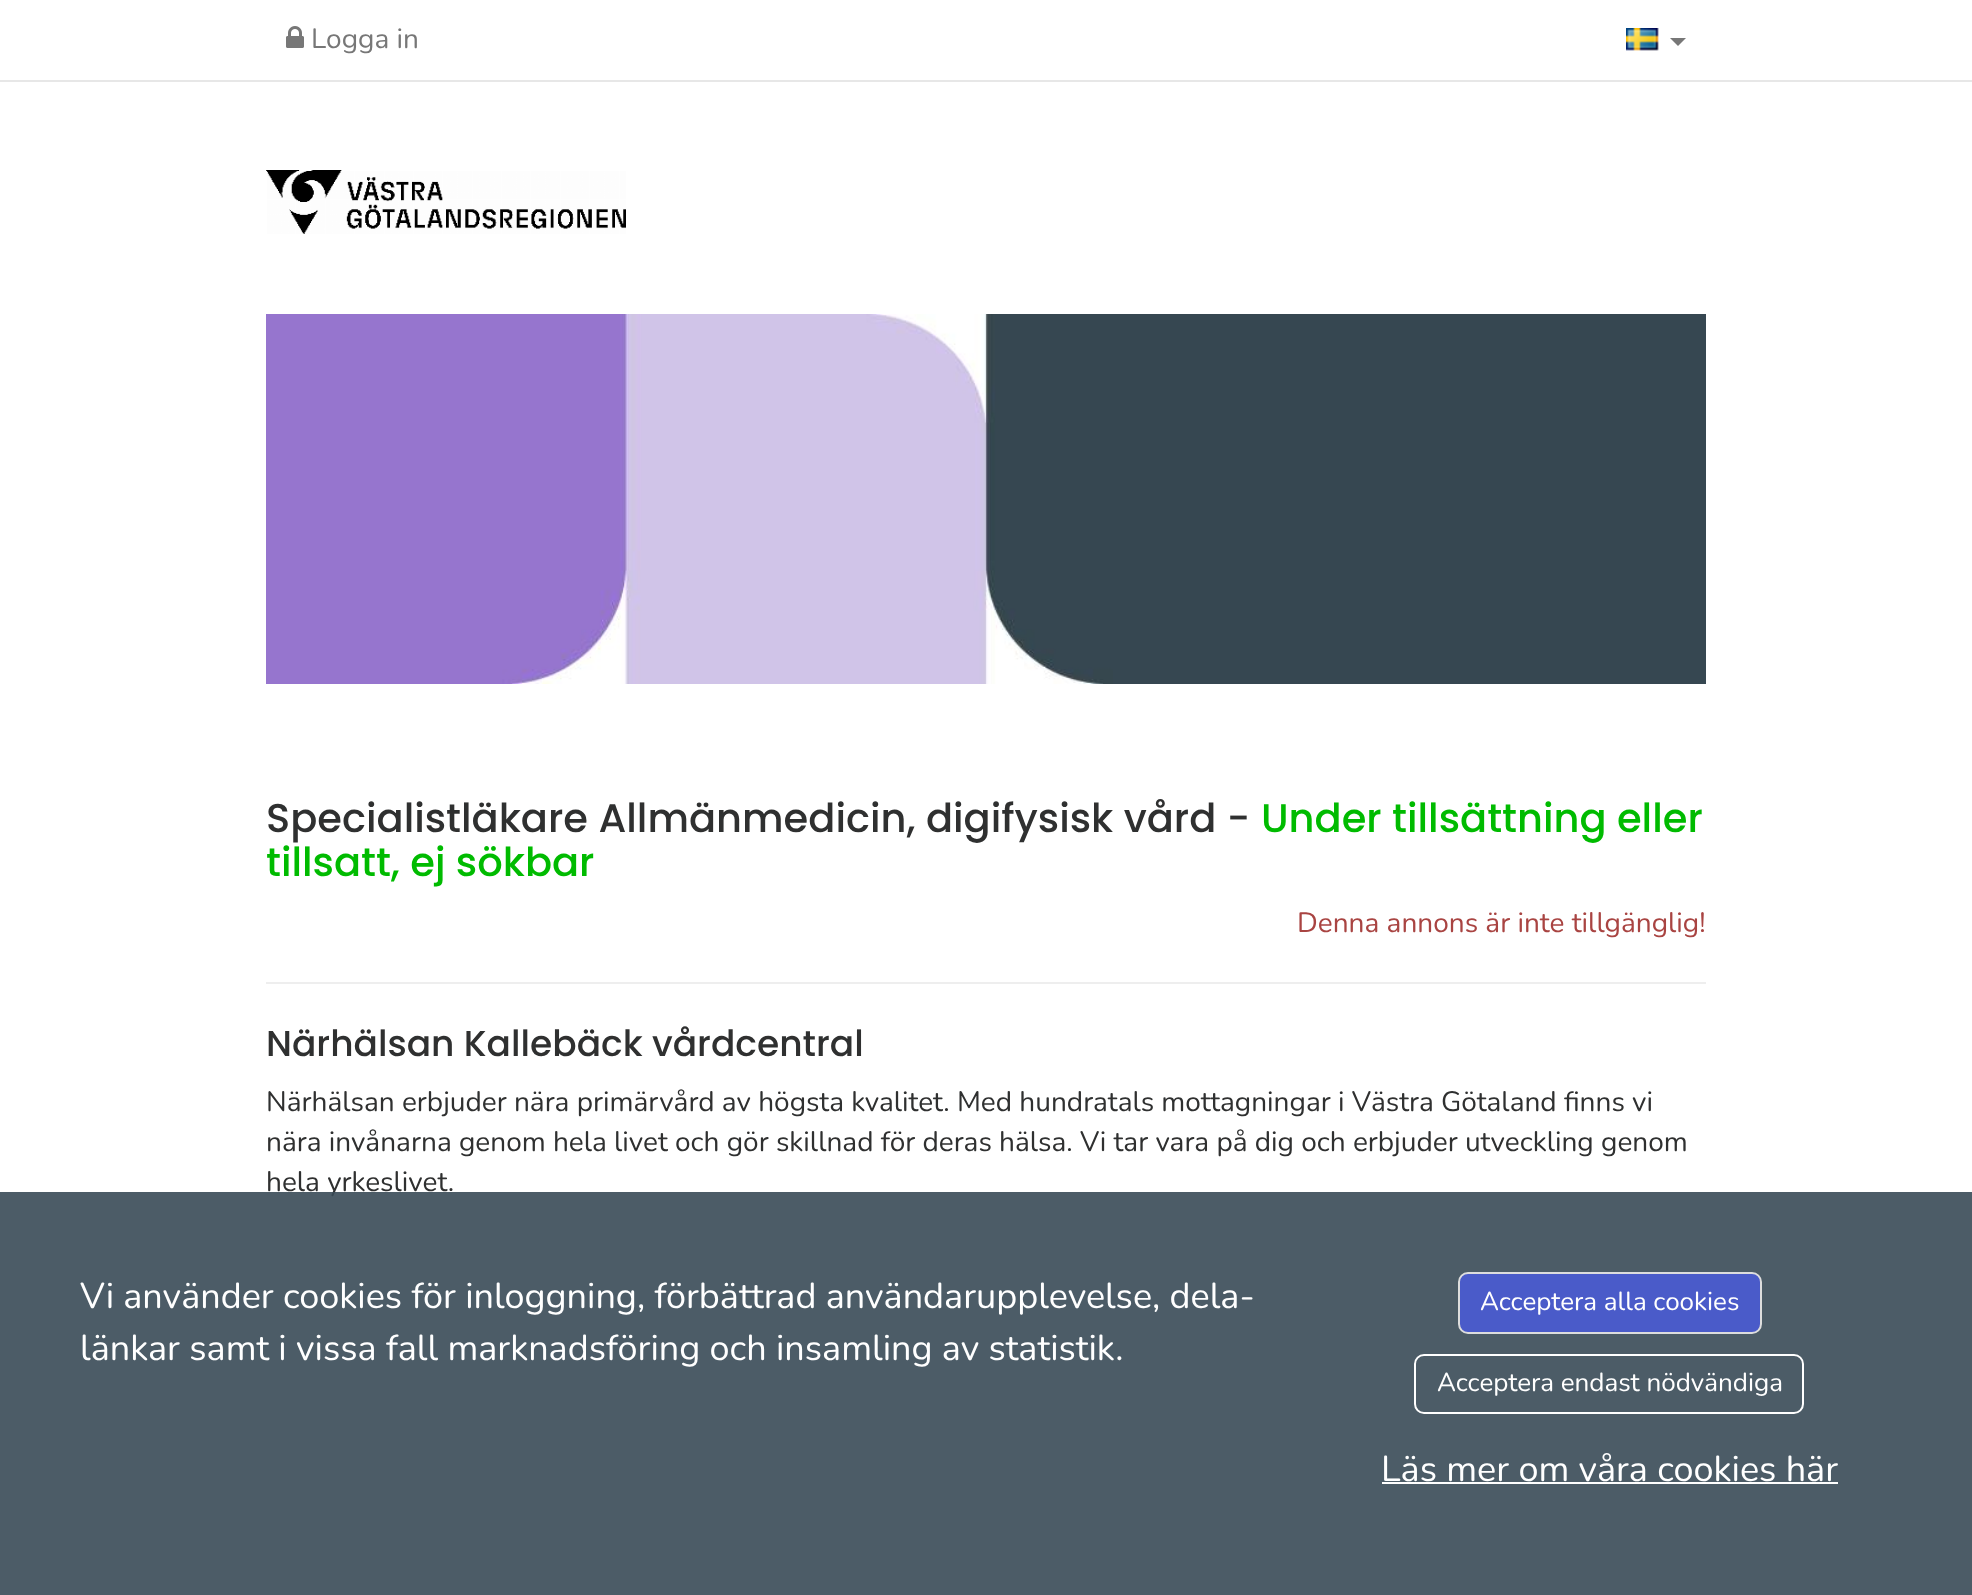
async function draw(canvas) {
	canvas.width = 1972;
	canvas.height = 1595;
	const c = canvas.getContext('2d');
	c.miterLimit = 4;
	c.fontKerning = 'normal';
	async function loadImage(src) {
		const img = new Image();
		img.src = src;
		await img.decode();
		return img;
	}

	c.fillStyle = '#fff';
	c.fillRect(0, 0, 1972, 1595);
	c.fillStyle = '#e7e7e7';
	c.fillRect(0, 80, 1972, 2);
	c.drawImage(await loadImage('img1.png'), 286, 26, 18, 22);
	c.font = '28px Nunito';
	c.fillStyle = '#777';
	c.fillText('Logga in', 311, 48);
	c.drawImage(await loadImage('img2.png'), 1626, 28, 33, 23);
	c.beginPath();
	c.moveTo(1670, 38);
	c.lineTo(1686, 38);
	c.lineTo(1678, 46);
	c.closePath();
	c.fill();
	c.drawImage(await loadImage('img3.png'), 266, 170, 360, 64);
	c.drawImage(await loadImage('img4.png'), 266, 314, 1440, 370);
	c.fillStyle = '#eee';
	c.fillRect(266, 982, 1440, 2);
	c.font = '500 40px Poppins';
	c.fillStyle = '#2f3030';
	c.fillText('Specialistläkare Allmänmedicin, digifysisk vård -', 266, 832);
	c.fillStyle = '#0b0';
	c.fillText('Under tillsättning eller', 1261, 832);
	c.fillText('tillsatt, ej sökbar', 266, 876);
	c.font = '28px Nunito';
	c.fillStyle = '#a94442';
	c.fillText('Denna annons är inte tillgänglig!', 1297, 932);
	c.font = '500 36px Poppins';
	c.fillStyle = '#2f3030';
	c.fillText('Närhälsan Kallebäck vårdcentral', 266, 1056);
	c.font = '28px Nunito';
	for (const [text, x, y] of [
		['Närhälsan erbjuder nära primärvård av högsta kvalitet. Med hundratals mottagningar i Västra Götaland finns vi', 266, 1111],
		['nära invånarna genom hela livet och gör skillnad för deras hälsa. Vi tar vara på dig och erbjuder utveckling genom', 266, 1151],
		['hela yrkeslivet.', 266, 1191],
	]) {
		c.fillText(text, x, y);
	}
	c.fillStyle = '#384a57e6';
	c.fillRect(0, 1192, 1972, 403);
	c.font = '36px Nunito';
	c.fillStyle = '#fff';
	c.fillText('Vi använder cookies för inloggning, förbättrad användarupplevelse, dela-', 80, 1308);
	c.fillText('länkar samt i vissa fall marknadsföring och insamling av statistik.', 80, 1360);
	c.fillStyle = '#4a5bc9';
	c.beginPath();
	c.roundRect(1459, 1273, 302, 60, 9);
	c.fill();
	c.strokeStyle = '#ddd';
	c.lineWidth = 2;
	c.stroke();
	c.font = '26px Nunito';
	c.fillStyle = '#fff';
	c.fillText('Acceptera alla cookies', 1480, 1310);
	c.beginPath();
	c.roundRect(1415, 1355, 388, 58, 9);
	c.strokeStyle = '#fff';
	c.stroke();
	c.fillText('Acceptera endast nödvändiga', 1437, 1391);
	c.font = '36px Nunito';
	c.fillText('Läs mer om våra cookies här', 1381, 1481);
	c.fillRect(1382, 1482, 456, 2);
}

draw(document.querySelector('canvas'));
